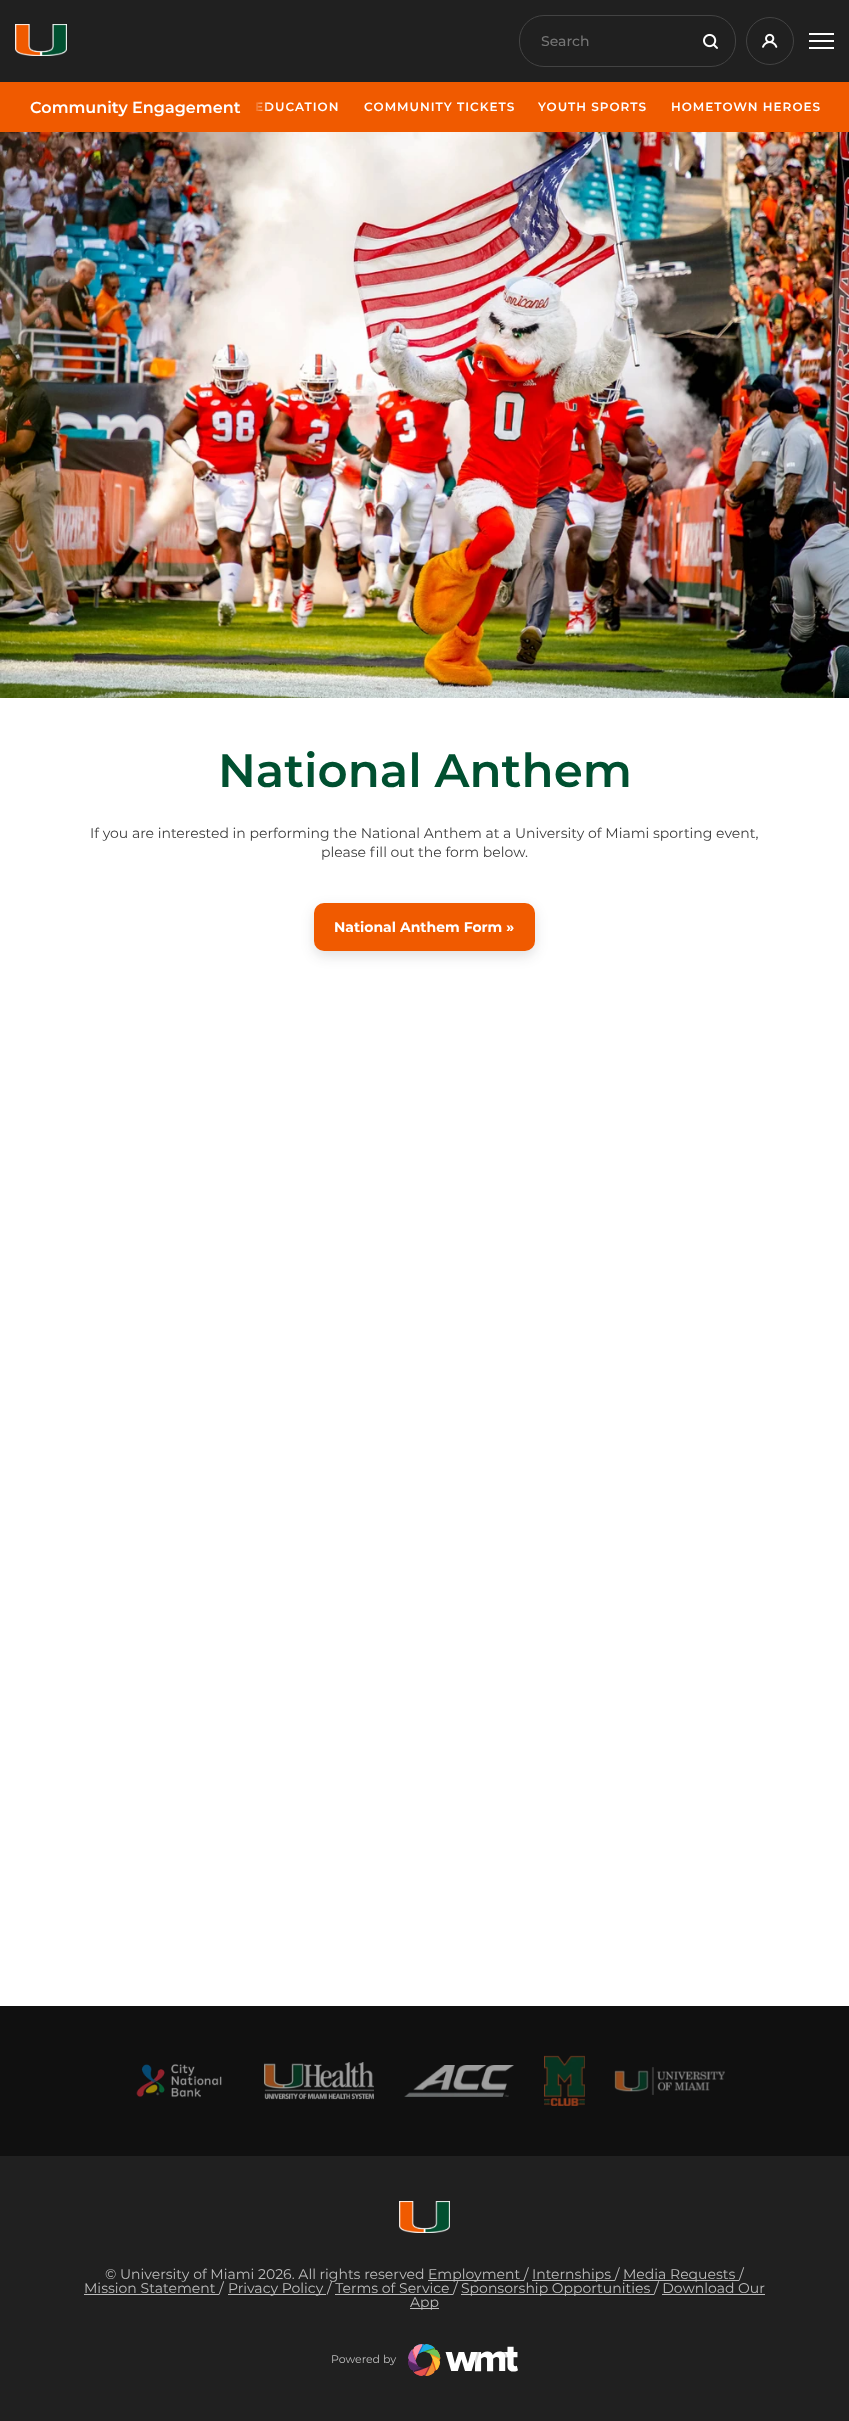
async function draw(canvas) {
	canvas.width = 849;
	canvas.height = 2421;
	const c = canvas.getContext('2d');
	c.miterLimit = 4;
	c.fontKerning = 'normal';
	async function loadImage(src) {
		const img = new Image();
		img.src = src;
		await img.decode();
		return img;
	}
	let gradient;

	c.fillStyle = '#fff';
	c.fillRect(0, 0, 849, 2421);
	c.fillStyle = '#202020';
	c.fillRect(0, 0, 849, 82);
	c.drawImage(await loadImage('img1.png'), 15, 24, 52, 32);
	c.beginPath();
	c.roundRect(519.5, 15.5, 216, 51, 24.5);
	c.strokeStyle = '#434343';
	c.stroke();
	c.font = '500 14px Montserrat';
	c.fillStyle = '#757575';
	c.fillText('Search', 541, 46);
	c.drawImage(await loadImage('img2.png'), 703, 33, 15, 16);
	c.beginPath();
	c.arc(770, 41, 23.5, 0, 2 * Math.PI);
	c.stroke();
	c.drawImage(await loadImage('img3.png'), 762, 33, 16, 15);
	for (const [x, y, w, h, color] of [
		[809, 33, 25, 2, '#fff'],
		[809, 40, 25, 2, '#fff'],
		[809, 47, 25, 2, '#fff'],
		[0, 82, 849, 50, '#f05a00'],
	]) {
		c.fillStyle = color;
		c.fillRect(x, y, w, h);
	}
	c.font = '600 16px Montserrat';
	c.fillStyle = '#fff';
	c.fillText('Community Engagement', 30, 113);
	c.letterSpacing = '1px';
	c.font = '600 12px Montserrat';
	for (const [text, x, y] of [
		['EDUCATION', 255, 111],
		['COMMUNITY TICKETS', 364, 111],
		['YOUTH SPORTS', 538, 111],
		['HOMETOWN HEROES', 671, 111],
	]) {
		c.fillText(text, x, y);
	}
	gradient = c.createLinearGradient(269, 107, 254, 107);
	gradient.addColorStop(0, '#f05a0000');
	gradient.addColorStop(1, '#f05a00');
	c.fillStyle = gradient;
	c.fillRect(256, 102, 13, 9);
	c.drawImage(await loadImage('img4.png'), 0, 132, 849, 566);
	c.letterSpacing = '0px';
	c.font = '600 46.75px Montserrat';
	c.fillStyle = '#005030';
	c.fillText('National Anthem', 218, 787);
	c.font = '14px Montserrat';
	c.fillStyle = '#3c3c3c';
	c.fillText('If you are interested in performing the National Anthem at a University of Miami sporting event,', 90, 838);
	c.fillText('please fill out the form below.', 321, 857);
	c.fillStyle = '#1b1b2324';
	c.filter = 'blur(6.5px)';
	c.beginPath();
	c.roundRect(314, 908, 221, 48, 10);
	c.fill();
	c.filter = 'none';
	c.fillStyle = '#f05a00';
	c.beginPath();
	c.roundRect(314, 903, 221, 48, 10);
	c.fill();
	c.font = 'bold 14px Montserrat';
	c.fillStyle = '#fff';
	c.fillText('National Anthem Form »', 334, 932);
	c.fillStyle = '#101010';
	c.fillRect(0, 2006, 849, 150);
	c.drawImage(await loadImage('img5.png'), 136, 2064, 86, 34);
	c.drawImage(await loadImage('img6.png'), 264, 2062, 110, 38);
	c.drawImage(await loadImage('img7.png'), 404, 2065, 110, 32);
	c.drawImage(await loadImage('img8.png'), 544, 2055, 41, 51);
	c.drawImage(await loadImage('img9.png'), 614, 2067, 111, 28);
	c.fillStyle = '#202020';
	c.fillRect(0, 2156, 849, 265);
	c.drawImage(await loadImage('img10.png'), 399, 2201, 51, 32);
	c.font = '14px Montserrat';
	c.fillStyle = '#bdbdbd';
	c.fillText('© University of Miami 2026. All rights reserved', 105, 2279);
	c.fillRect(428, 2280, 96, 1);
	c.fillText('Employment /', 428, 2279);
	c.fillRect(532, 2280, 83, 1);
	c.fillText('Internships /', 532, 2279);
	c.fillRect(623, 2280, 116, 1);
	c.fillText('Media Requests /', 623, 2279);
	c.fillRect(84, 2294, 135, 1);
	c.fillText('Mission Statement /', 84, 2293);
	c.fillRect(228, 2294, 98, 1);
	c.fillText('Privacy Policy / Terms of Service', 228, 2293);
	c.fillRect(335, 2294, 118, 1);
	c.fillText('/', 453, 2293);
	c.fillRect(461, 2294, 193, 1);
	c.fillText('Sponsorship Opportunities / Download Our', 461, 2293);
	c.fillRect(410, 2308, 29, 1);
	c.fillText('App', 410, 2307);
	c.fillRect(662, 2294, 103, 1);
	c.font = '11px Montserrat';
	c.fillText('Powered by', 331, 2363);
	c.drawImage(await loadImage('img11.png'), 408, 2344, 110, 32);
}

draw(document.querySelector('canvas'));
